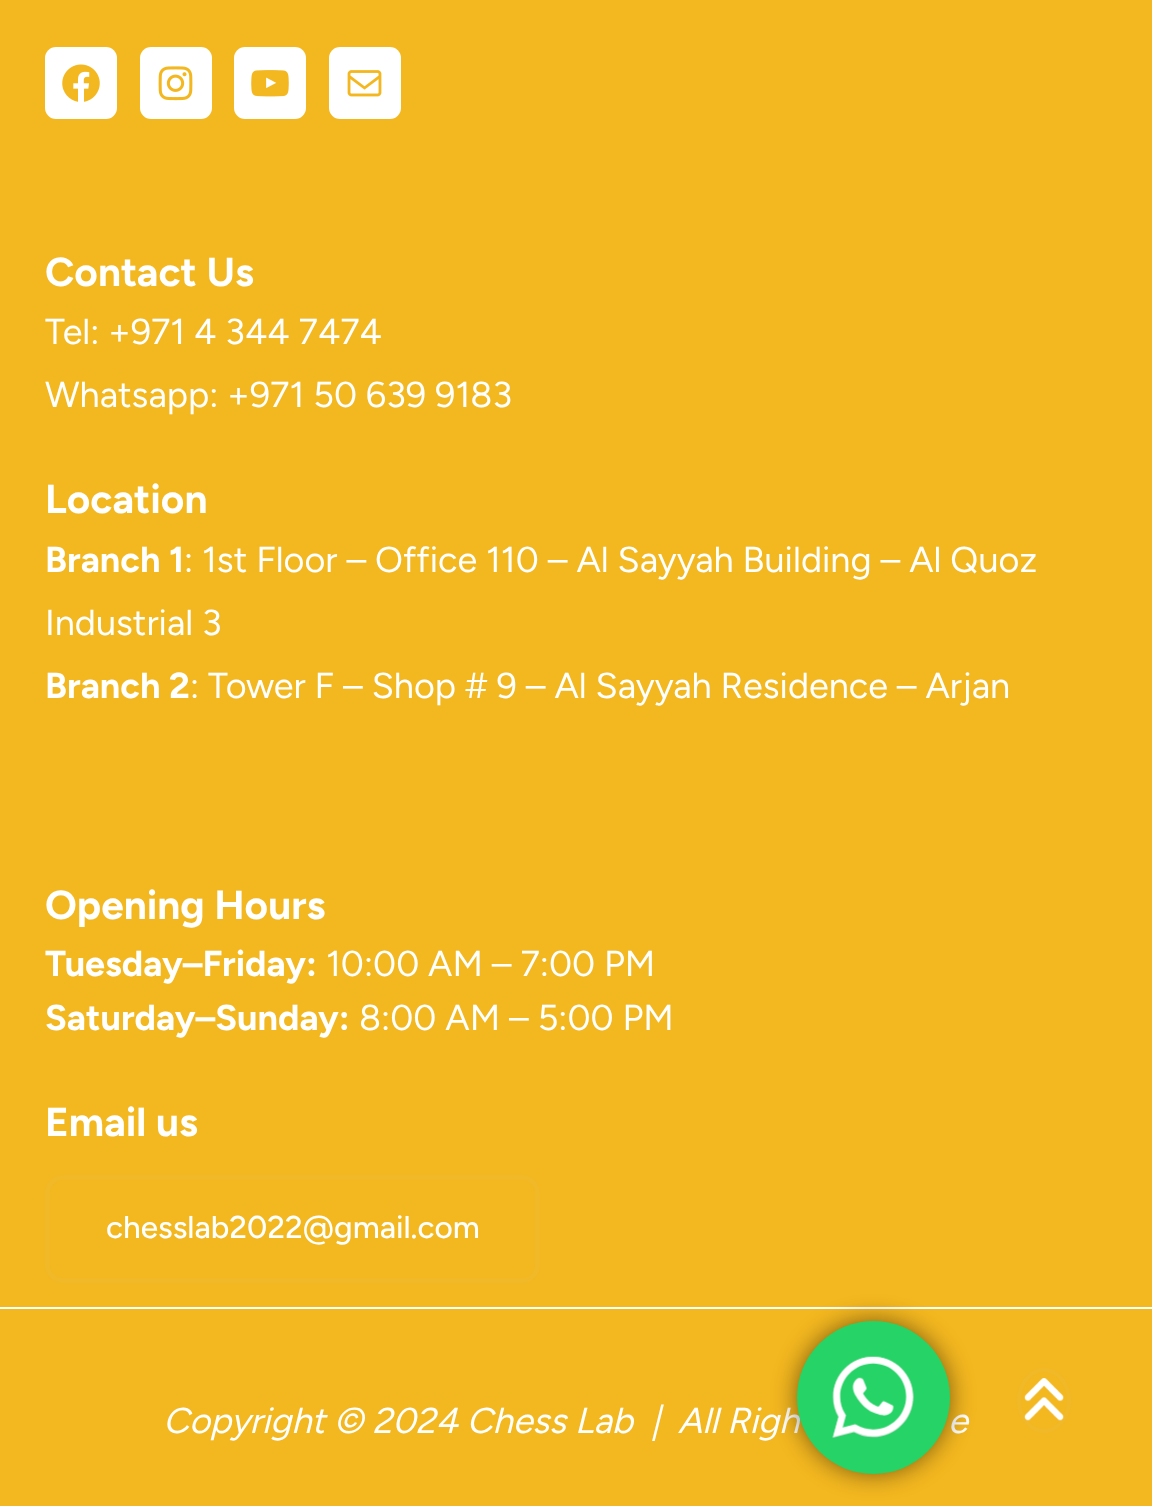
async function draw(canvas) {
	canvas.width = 1152;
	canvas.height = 1506;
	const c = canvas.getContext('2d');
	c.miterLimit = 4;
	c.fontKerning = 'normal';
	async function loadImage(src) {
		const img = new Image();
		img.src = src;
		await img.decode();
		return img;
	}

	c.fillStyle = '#f3b71f';
	c.fillRect(0, 0, 1152, 1506);
	c.fillStyle = '#fff';
	c.beginPath();
	c.roundRect(45, 47, 72, 72, 11);
	c.fill();
	c.drawImage(await loadImage('img1.png'), 62, 64, 38, 38);
	c.beginPath();
	c.roundRect(140, 47, 72, 72, 11);
	c.fill();
	c.drawImage(await loadImage('img2.png'), 158, 66, 35, 35);
	c.beginPath();
	c.roundRect(234, 47, 72, 72, 11);
	c.fill();
	c.drawImage(await loadImage('img3.png'), 251, 70, 38, 27);
	c.beginPath();
	c.roundRect(329, 47, 72, 72, 11);
	c.fill();
	c.drawImage(await loadImage('img4.png'), 347, 70, 35, 27);
	c.font = 'bold 40.5px Figtree';
	c.fillText('Contact Us', 45, 286);
	c.font = '36px Figtree';
	c.fillText('Tel: +971 4 344 7474', 45, 344);
	c.fillText('Whatsapp: +971 50 639 9183', 45, 407);
	c.font = 'bold 40.5px Figtree';
	c.fillText('Location', 45, 513);
	c.font = 'bold 36px Figtree';
	c.fillText('Branch 1', 45, 572);
	c.font = '36px Figtree';
	c.fillText(': 1st Floor – Office 110 – Al Sayyah Building – Al Quoz', 184, 572);
	c.fillText('Industrial 3', 45, 635);
	c.font = 'bold 36px Figtree';
	c.fillText('Branch 2', 45, 698);
	c.font = '36px Figtree';
	c.fillText(': Tower F – Shop # 9 – Al Sayyah Residence – Arjan', 190, 698);
	c.font = 'bold 40.5px Figtree';
	c.fillText('Opening Hours', 45, 919);
	c.font = 'bold 36px Figtree';
	c.fillText('Tuesday–Friday:', 45, 976);
	c.font = '36px Figtree';
	c.fillText('10:00 AM – 7:00 PM', 326, 976);
	c.font = 'bold 36px Figtree';
	c.fillText('Saturday–Sunday:', 45, 1030);
	c.font = '36px Figtree';
	c.fillText('8:00 AM – 5:00 PM', 359, 1030);
	c.font = 'bold 40.5px Figtree';
	c.fillText('Email us', 45, 1136);
	c.beginPath();
	c.roundRect(47.5, 1177.5, 490, 103, 15.5);
	c.strokeStyle = '#f1b927';
	c.lineWidth = 5;
	c.stroke();
	c.font = '500 31.5px Figtree';
	c.fillText('chesslab2022@gmail.com', 106, 1238);
	c.fillRect(0, 1307, 1152, 2);
	c.font = 'italic 36px Figtree';
	c.fillText('Copyright © 2024 Chess Lab  |  All Righ', 163, 1433);
	c.fillText('e', 948, 1433);
	c.beginPath();
	c.moveTo(1044, 1370);
	c.bezierCurveTo(1057.5, 1370, 1069, 1384, 1069, 1400.5);
	c.bezierCurveTo(1069, 1417.5, 1057.5, 1431, 1044, 1431);
	c.bezierCurveTo(1030.5, 1431, 1019, 1417.5, 1019, 1400.5);
	c.bezierCurveTo(1019, 1384, 1030.5, 1370, 1044, 1370);
	c.closePath();
	c.lineWidth = 4.5;
	c.stroke();
	c.drawImage(await loadImage('img5.png'), 1024, 1378, 40, 43);
	c.fillStyle = '#00000080';
	c.filter = 'blur(12.5px)';
	c.beginPath();
	c.roundRect(797, 1321, 153, 153, 76.5);
	c.fill();
	c.filter = 'none';
	c.fillStyle = '#25d366';
	c.beginPath();
	c.arc(873.5, 1397.5, 76.5, 0, 2 * Math.PI);
	c.fill();
	c.drawImage(await loadImage('img6.png'), 832, 1356, 82, 82);
}

draw(document.querySelector('canvas'));
